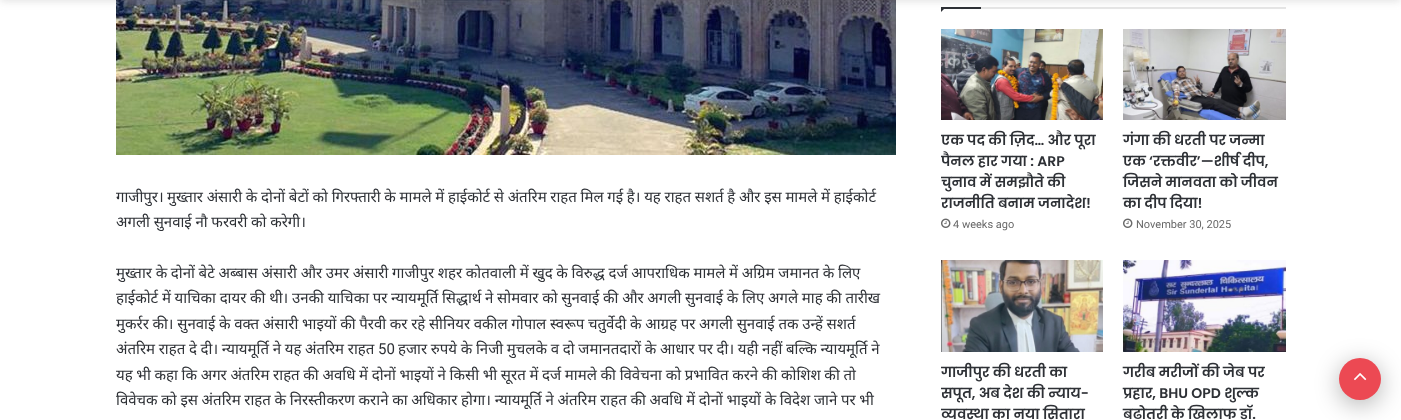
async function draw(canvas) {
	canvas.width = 1401;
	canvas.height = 420;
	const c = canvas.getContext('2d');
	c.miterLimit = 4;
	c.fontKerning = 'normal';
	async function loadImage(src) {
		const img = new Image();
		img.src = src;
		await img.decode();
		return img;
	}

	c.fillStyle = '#fff';
	c.fillRect(0, 0, 1401, 420);
	c.drawImage(await loadImage('img1.png'), 116, 0, 780, 155);
	c.fillStyle = '#e6e6e6';
	c.fillRect(981, 7, 305, 2);
	c.fillStyle = '#2e3136';
	c.beginPath();
	c.moveTo(941, 7);
	c.lineTo(946, 7);
	c.lineTo(941, 12);
	c.closePath();
	c.fill();
	c.fillRect(941, 7, 40, 2);
	c.fillStyle = '#63636333';
	c.filter = 'blur(4px)';
	c.beginPath();
	c.rect(0, -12, 1401, 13);
	c.fill();
	c.filter = 'none';
	c.font = '15px Noto Sans';
	c.fillStyle = '#2e3136';
	c.fillText('गाजीपुर।', 116, 202);
	c.wordSpacing = '-0.2px';
	for (const [text, x, y] of [
		['मुख्तार अंसारी के दोनों बेटों को गिरफ्तारी के मामले में हाईकोर्ट से अंतरिम राहत मिल गई है। यह राहत सशर्त है और इस मामले में हाईकोर्ट', 167, 202],
		['अगली सुनवाई नौ फरवरी को करेगी।', 116, 227],
		['मुख्तार के दोनों बेटे अब्बास अंसारी और उमर अंसारी गाजीपुर शहर कोतवाली में खुद के विरुद्ध दर्ज आपराधिक मामले में अग्रिम जमानत के लिए', 116, 278],
		['हाईकोर्ट में याचिका दायर की थी। उनकी याचिका पर न्यायमूर्ति सिद्धार्थ ने सोमवार को सुनवाई की और अगली सुनवाई के लिए अगले माह की तारीख', 116, 303],
		['मुकर्रर की। सुनवाई के वक्त अंसारी भाइयों की पैरवी कर रहे सीनियर वकील गोपाल स्वरूप चतुर्वेदी के आग्रह पर अगली सुनवाई तक उन्हें सशर्त', 116, 329],
		['अंतरिम राहत दे दी। न्यायमूर्ति ने यह अंतरिम राहत', 116, 354],
	]) {
		c.fillText(text, x, y);
	}
	c.wordSpacing = '0px';
	c.font = '15px Roboto';
	c.fillText('50', 378, 354);
	c.wordSpacing = '-0.2px';
	c.font = '15px Noto Sans';
	for (const [text, x, y] of [
		['हजार रुपये के निजी मुचलके व दो जमानतदारों के आधार पर दी। यही नहीं बल्कि न्यायमूर्ति ने', 398, 354],
		['यह भी कहा कि अगर अंतरिम राहत की अवधि में दोनों भाइयों ने किसी भी सूरत में दर्ज मामले की विवेचना को प्रभावित करने की कोशिश की तो', 116, 380],
		['विवेचक को इस अंतरिम राहत के निरस्तीकरण कराने का अधिकार होगा। न्यायमूर्ति ने अंतरिम राहत की अवधि में दोनों भाइयों के विदेश जाने पर भी', 116, 405],
	]) {
		c.fillText(text, x, y);
	}
	c.drawImage(await loadImage('img2.png'), 941, 29, 162, 91);
	c.save();
	c.beginPath();
	c.rect(941, 29, 345, 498);
	c.clip();
	c.wordSpacing = '0px';
	c.font = '600 14px Poppins';
	for (const [text, x, y] of [
		['एक पद की ज़िद… और पूरा', 941, 145],
		['पैनल हार गया : ARP', 941, 166],
		['चुनाव में समझौते की', 941, 187],
		['राजनीति बनाम जनादेश!', 941, 208],
	]) {
		c.fillText(text, x, y);
	}
	c.restore();
	c.drawImage(await loadImage('img3.png'), 941, 218, 10, 10);
	c.wordSpacing = '0px';
	c.font = '11px Roboto';
	c.fillStyle = '#686868';
	c.fillText('4 weeks ago', 953, 228);
	c.drawImage(await loadImage('img4.png'), 1123, 29, 163, 91);
	c.font = '600 14px Poppins';
	c.fillStyle = '#2e3136';
	for (const [text, x, y] of [
		['गंगा की धरती पर जन्मा', 1123, 145],
		['एक ‘रक्तवीर’—शीर्ष दीप,', 1123, 166],
		['जिसने मानवता को जीवन', 1123, 187],
		['का दीप दिया!', 1123, 208],
	]) {
		c.fillText(text, x, y);
	}
	c.drawImage(await loadImage('img3.png'), 1123, 218, 10, 10);
	c.font = '11px Roboto';
	c.fillStyle = '#686868';
	c.fillText('November 30, 2025', 1136, 228);
	c.drawImage(await loadImage('img5.png'), 941, 260, 162, 92);
	c.save();
	c.beginPath();
	c.rect(941, 29, 345, 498);
	c.clip();
	c.font = '600 14px Poppins';
	c.fillStyle = '#2e3136';
	for (const [text, x, y] of [
		['गाजीपुर की धरती का', 941, 377],
		['सपूत, अब देश की न्याय-', 941, 398],
		['व्यवस्था का नया सितारा', 941, 419],
	]) {
		c.fillText(text, x, y);
	}
	c.restore();
	c.drawImage(await loadImage('img6.png'), 1123, 260, 163, 92);
	c.font = '600 14px Poppins';
	c.fillStyle = '#2e3136';
	for (const [text, x, y] of [
		['गरीब मरीजों की जेब पर', 1123, 377],
		['प्रहार, BHU OPD शुल्क', 1123, 398],
		['बढ़ोतरी के खिलाफ डॉ.', 1123, 419],
	]) {
		c.fillText(text, x, y);
	}
	c.fillStyle = '#0000004d';
	c.filter = 'blur(12.5px)';
	c.beginPath();
	c.roundRect(1339, 363, 42, 42, 21);
	c.fill();
	c.filter = 'none';
	c.fillStyle = '#ec4953';
	c.beginPath();
	c.arc(1360, 379, 21, 0, 2 * Math.PI);
	c.fill();
	c.drawImage(await loadImage('img7.png'), 1354, 373, 13, 8);
}

draw(document.querySelector('canvas'));
